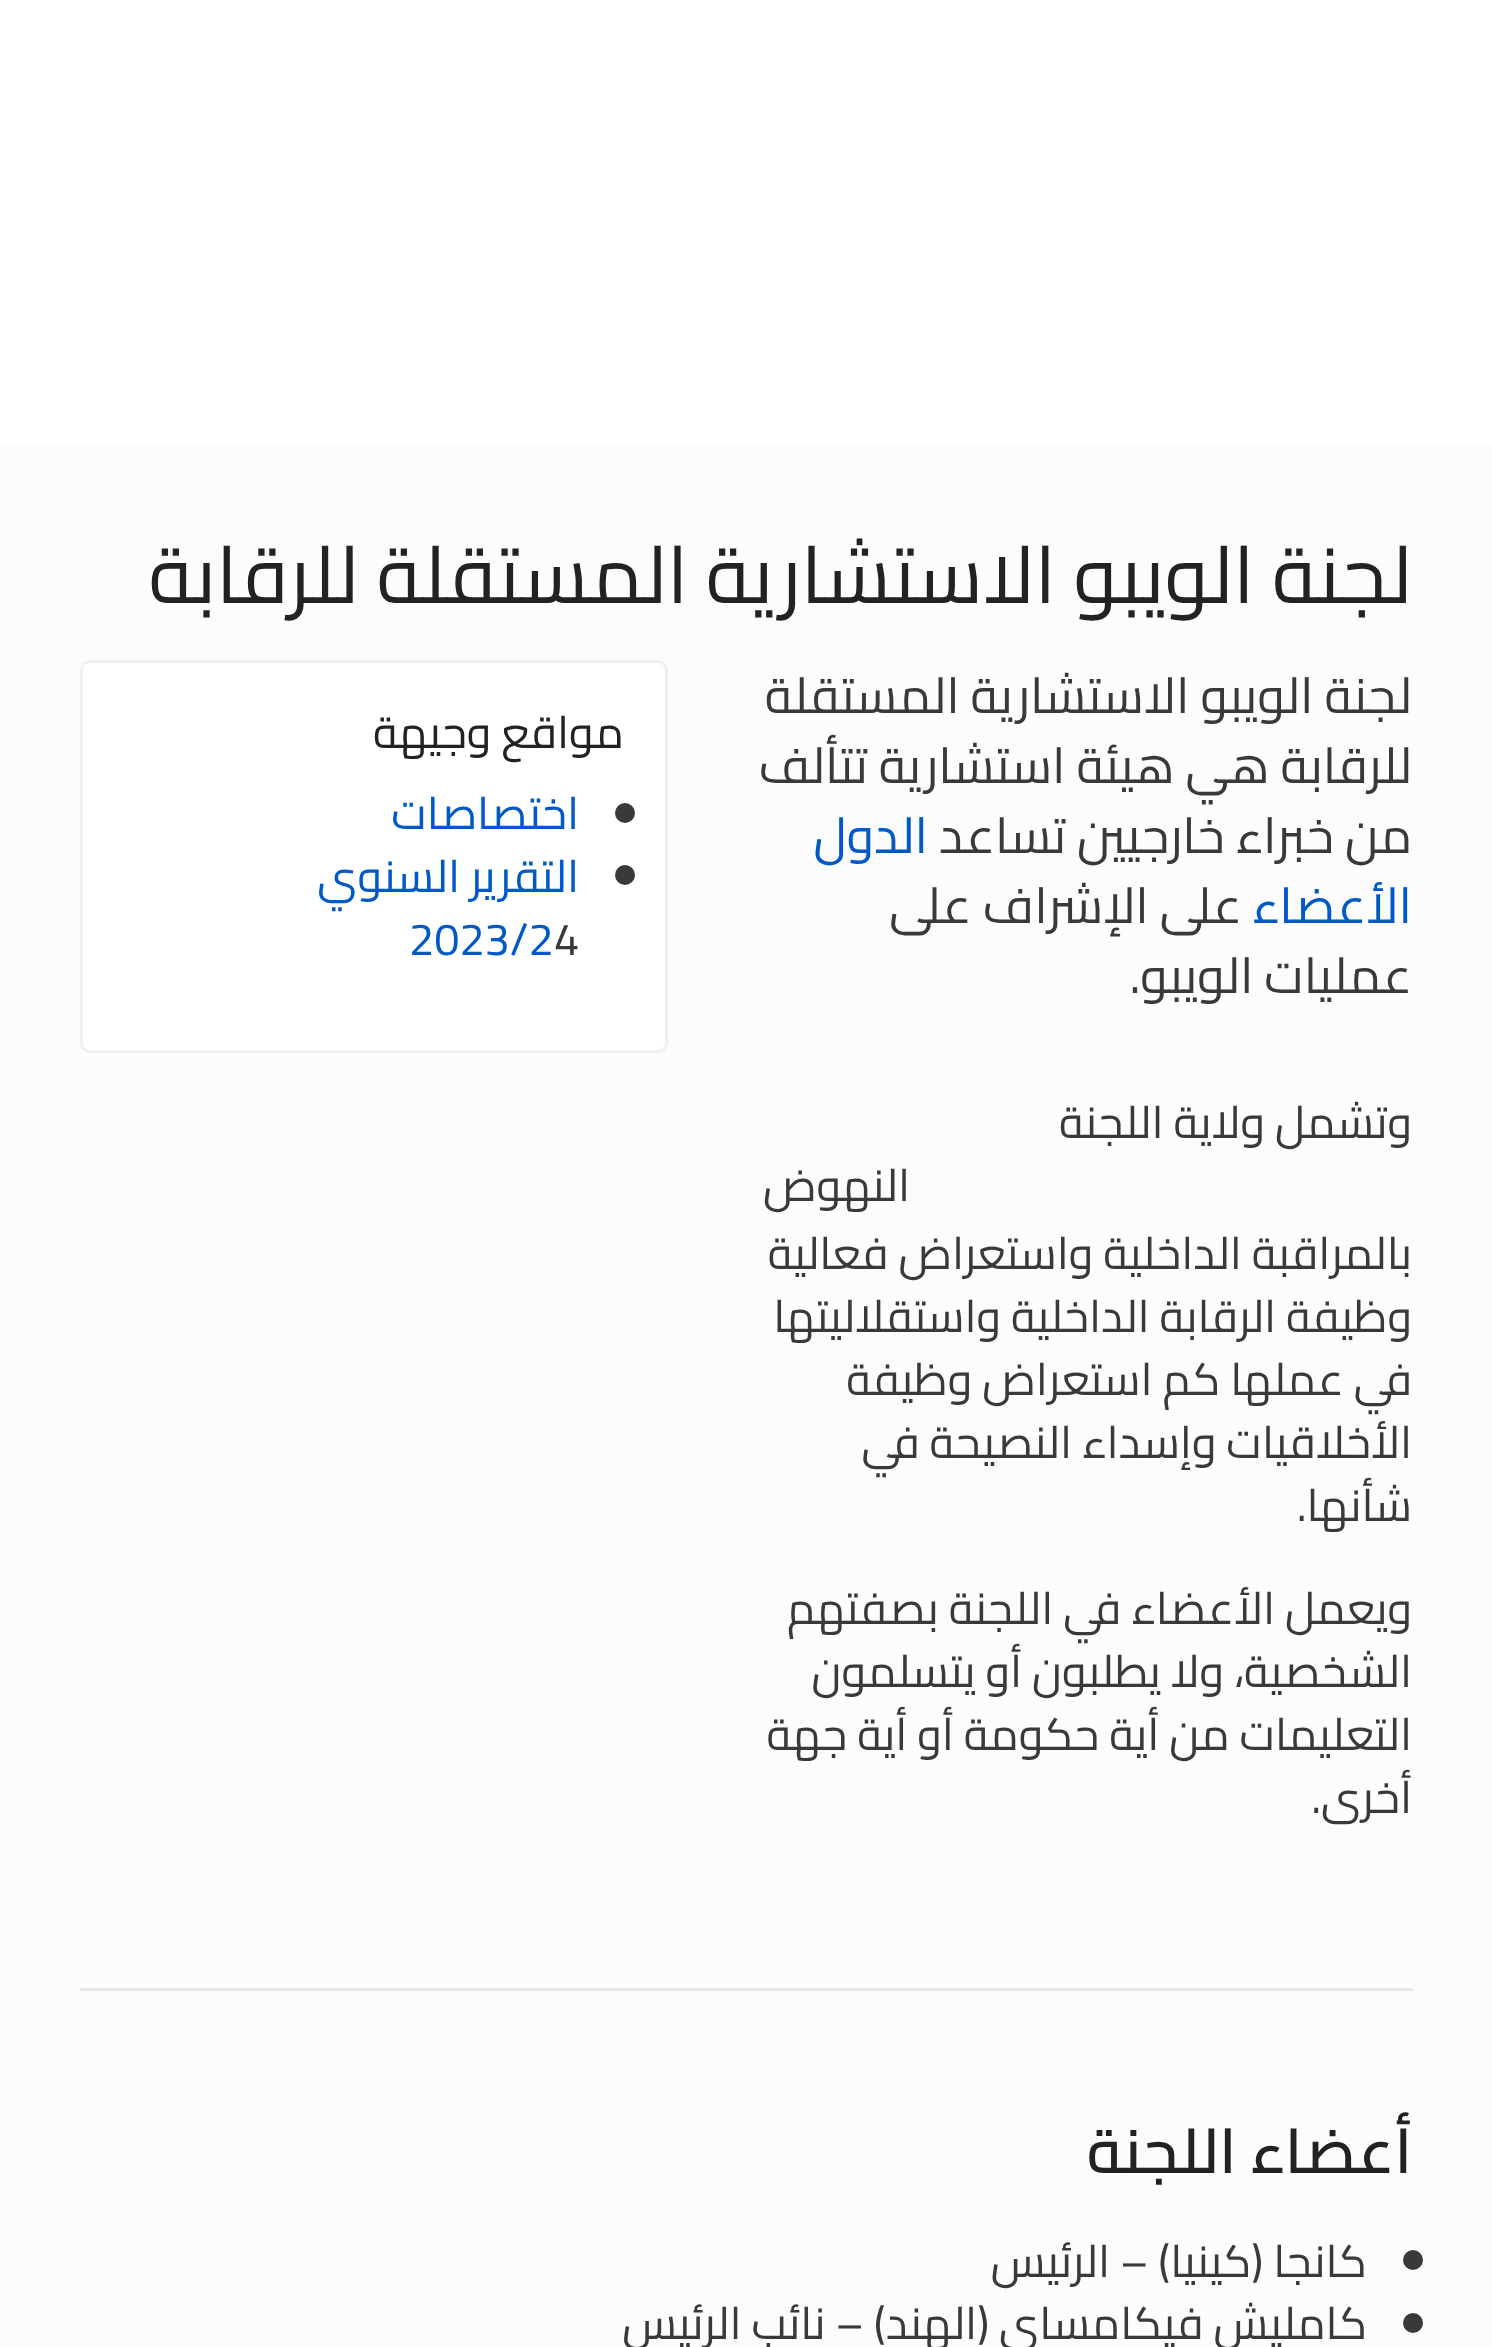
async function draw(canvas) {
	canvas.width = 1492;
	canvas.height = 2347;
	const c = canvas.getContext('2d');
	c.miterLimit = 4;
	c.fontKerning = 'normal';

	c.fillStyle = '#fcfcfc';
	c.fillRect(0, 0, 1492, 2347);
	c.fillStyle = '#fff';
	c.fillRect(0, 0, 1492, 445);
	c.direction = 'rtl';
	c.font = '80px Cairo';
	c.fillStyle = '#222';
	c.fillText('لجنة الويبو الاستشارية المستقلة للرقابة', 1412, 603);
	c.font = '50px Cairo';
	c.fillStyle = '#393939';
	for (const [text, x, y] of [
		['لجنة الويبو الاستشارية المستقلة', 1412, 713],
		['للرقابة هي هيئة استشارية تتألف', 1412, 783],
		['من خبراء خارجيين تساعد', 1412, 853],
	]) {
		c.fillText(text, x, y);
	}
	c.fillStyle = '#0059c6';
	c.fillText('الدول', 928, 853);
	c.fillText('الأعضاء', 1412, 923);
	c.fillStyle = '#393939';
	c.fillText('على الإشراف على', 1242, 923);
	c.fillText('عمليات الويبو.', 1412, 993);
	c.font = '45px Cairo';
	for (const [text, x, y] of [
		['وتشمل ولاية اللجنة', 1412, 1138],
		['النهوض', 910, 1201],
		['بالمراقبة الداخلية واستعراض فعالية', 1412, 1269],
		['وظيفة الرقابة الداخلية واستقلاليتها', 1412, 1332],
		['في عملها كم استعراض وظيفة', 1412, 1395],
		['الأخلاقيات وإسداء النصيحة في', 1412, 1458],
		['شأنها.', 1412, 1521],
		['ويعمل الأعضاء في اللجنة بصفتهم', 1412, 1624],
		['الشخصية، ولا يطلبون أو يتسلمون', 1412, 1687],
		['التعليمات من أية حكومة أو أية جهة', 1412, 1750],
		['أخرى.', 1412, 1813],
	]) {
		c.fillText(text, x, y);
	}
	c.fillStyle = '#fff';
	c.beginPath();
	c.roundRect(81.5, 661.5, 585, 390, 8.5);
	c.fill();
	c.strokeStyle = '#f0f0f0';
	c.lineWidth = 3;
	c.stroke();
	c.fillStyle = '#222';
	c.fillText('مواقع وجيهة', 624, 748);
	c.fillStyle = '#393939';
	c.beginPath();
	c.arc(625, 813, 10, 0, 2 * Math.PI);
	c.fill();
	c.fillStyle = '#0059c6';
	c.fillText('اختصاصات', 579, 829);
	c.fillStyle = '#393939';
	c.beginPath();
	c.arc(625, 875, 10, 0, 2 * Math.PI);
	c.fill();
	c.fillStyle = '#0059c6';
	c.fillText('التقرير السنوي', 579, 892);
	c.direction = 'ltr';
	c.fillStyle = '#393939';
	c.fillText('4', 554, 955);
	c.fillStyle = '#0059c6';
	c.fillText('2023/2', 409, 955);
	c.fillStyle = '#e6e6e6';
	c.fillRect(80, 1988, 1333, 3);
	c.direction = 'rtl';
	c.font = '600 62.5px Cairo';
	c.fillStyle = '#222';
	c.fillText('أعضاء اللجنة', 1412, 2173);
	c.fillStyle = '#393939';
	c.beginPath();
	c.arc(1413, 2260, 10, 0, 2 * Math.PI);
	c.fill();
	c.font = '45px Cairo';
	c.fillText('كانجا (كينيا) – الرئيس', 1367, 2277);
	c.beginPath();
	c.arc(1413, 2323, 10, 0, 2 * Math.PI);
	c.fill();
	c.fillText('كامليش فيكامساي (الهند) – نائب الرئيس', 1367, 2339);
}

draw(document.querySelector('canvas'));
